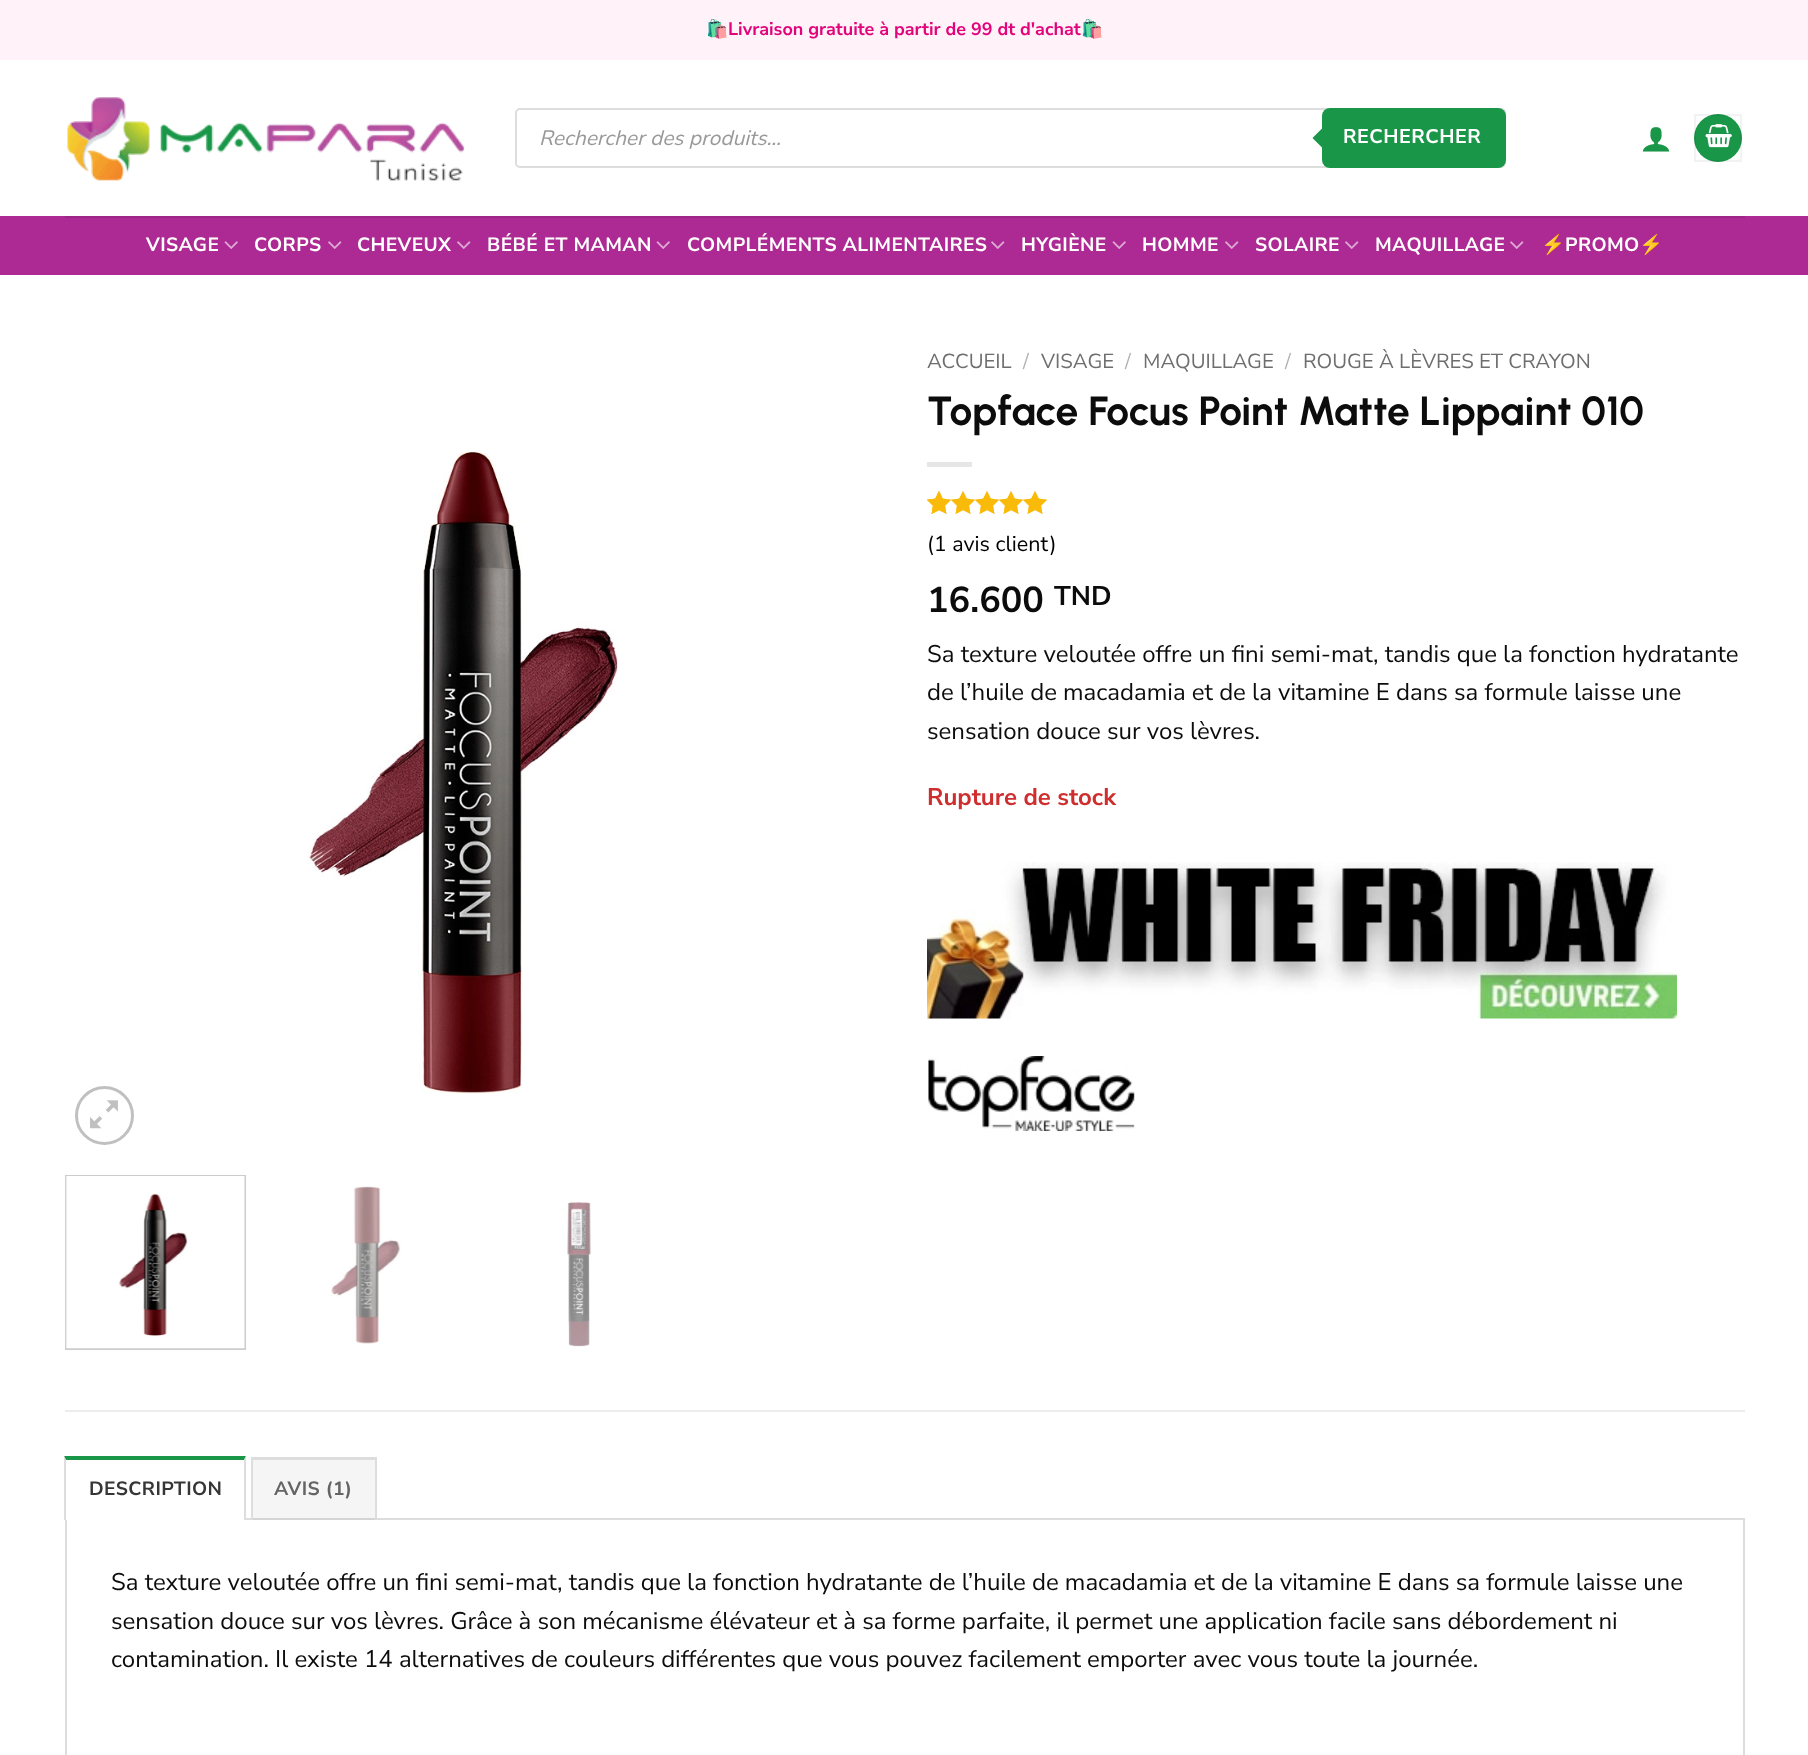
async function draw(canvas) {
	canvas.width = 1808;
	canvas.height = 1755;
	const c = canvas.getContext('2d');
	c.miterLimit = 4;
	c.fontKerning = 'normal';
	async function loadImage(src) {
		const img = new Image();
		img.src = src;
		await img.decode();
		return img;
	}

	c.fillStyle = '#fff';
	c.fillRect(0, 0, 1808, 1755);
	c.fillStyle = '#fff2f9';
	c.fillRect(0, 0, 1808, 60);
	c.font = 'bold 18px Noto Color Emoji';
	c.fillStyle = '#e2047b';
	c.fillText('🛍️', 706, 35);
	c.font = 'bold 18px Nunito Sans';
	c.fillText('Livraison gratuite à partir de 99 dt d\'achat', 728, 35);
	c.font = 'bold 18px Noto Color Emoji';
	c.fillText('🛍️', 1081, 35);
	c.drawImage(await loadImage('img1.png'), 67, 97, 398, 84);
	c.beginPath();
	c.roundRect(516, 109, 989, 58, 4);
	c.strokeStyle = '#ddd';
	c.lineWidth = 2;
	c.stroke();
	c.font = 'italic 21px Nunito Sans';
	c.fillStyle = '#999';
	c.fillText('Rechercher des produits...', 539, 145);
	c.fillStyle = '#199648';
	c.beginPath();
	c.roundRect(1322, 108, 184, 60, 8);
	c.fill();
	c.beginPath();
	c.moveTo(1324.5, 126);
	c.lineTo(1324.5, 150);
	c.lineTo(1312.5, 138);
	c.closePath();
	c.fill();
	c.letterSpacing = '0.5px';
	c.font = 'bold 19.75px Nunito Sans';
	c.fillStyle = '#fff';
	c.fillText('RECHERCHER', 1343, 143);
	c.drawImage(await loadImage('img2.png'), 1642, 127, 28, 25);
	c.fillStyle = '#199648';
	c.beginPath();
	c.arc(1718, 138, 24, 0, 2 * Math.PI);
	c.fill();
	c.strokeStyle = '#0000000d';
	c.strokeRect(1695, 115, 46, 46);
	c.drawImage(await loadImage('img3.png'), 1705, 124, 27, 24);
	c.fillStyle = '#ad2993';
	c.fillRect(0, 216, 1808, 59);
	c.fillStyle = '#9d2686';
	c.fillRect(65, 216, 1680, 2);
	c.letterSpacing = '0.4px';
	c.font = 'bold 19.25px Nunito Sans';
	c.fillStyle = '#fff';
	c.fillText('VISAGE', 146, 251);
	c.drawImage(await loadImage('img4.png'), 224, 241, 14, 8);
	c.fillText('CORPS', 254, 251);
	c.drawImage(await loadImage('img5.png'), 328, 241, 14, 8);
	c.fillText('CHEVEUX', 357, 251);
	c.drawImage(await loadImage('img5.png'), 457, 241, 14, 8);
	c.fillText('BÉBÉ ET MAMAN', 487, 251);
	c.drawImage(await loadImage('img4.png'), 656, 241, 14, 8);
	c.fillText('COMPLÉMENTS ALIMENTAIRES', 687, 251);
	c.drawImage(await loadImage('img5.png'), 991, 241, 14, 8);
	c.fillText('HYGIÈNE', 1021, 251);
	c.drawImage(await loadImage('img4.png'), 1112, 241, 14, 8);
	c.fillText('HOMME', 1142, 251);
	c.drawImage(await loadImage('img5.png'), 1225, 241, 14, 8);
	c.fillText('SOLAIRE', 1255, 251);
	c.drawImage(await loadImage('img5.png'), 1345, 241, 14, 8);
	c.fillText('MAQUILLAGE', 1375, 251);
	c.drawImage(await loadImage('img5.png'), 1510, 241, 14, 8);
	c.font = 'bold 19.25px Noto Color Emoji';
	c.fillText('⚡️', 1541, 251);
	c.font = 'bold 19.25px Nunito Sans';
	c.fillText('PROMO', 1565, 251);
	c.font = 'bold 19.25px Noto Color Emoji';
	c.fillText('⚡️', 1639, 251);
	c.drawImage(await loadImage('img6.png'), 307, 450, 311, 644);
	c.beginPath();
	c.arc(104.5, 1115.5, 28, 0, 2 * Math.PI);
	c.strokeStyle = '#c0c0c0';
	c.lineWidth = 3;
	c.stroke();
	c.drawImage(await loadImage('img7.png'), 90, 1100, 28, 29);
	c.strokeStyle = '#ccc';
	c.lineWidth = 2;
	c.strokeRect(66, 1176, 179, 173);
	c.drawImage(await loadImage('img8.png'), 65, 1176, 180, 173);
	c.drawImage(await loadImage('img9.png'), 331, 1186, 70, 158);
	c.drawImage(await loadImage('img10.png'), 567, 1202, 24, 145);
	c.letterSpacing = '0px';
	c.font = '20.4px Nunito Sans';
	c.fillStyle = '#6e6e6e';
	c.fillText('ACCUEIL', 927, 368);
	c.fillStyle = '#b2b2b2';
	c.fillText('/', 1023, 368);
	c.fillStyle = '#6e6e6e';
	c.fillText('VISAGE', 1041, 368);
	c.fillStyle = '#b2b2b2';
	c.fillText('/', 1125, 368);
	c.fillStyle = '#6e6e6e';
	c.fillText('MAQUILLAGE', 1143, 368);
	c.fillStyle = '#b2b2b2';
	c.fillText('/', 1285, 368);
	c.fillStyle = '#6e6e6e';
	c.fillText('ROUGE À LÈVRES ET CRAYON', 1303, 368);
	c.font = 'bold 40.75px Urbanist';
	c.fillStyle = '#0c0c0c';
	c.fillText('Topface Focus Point Matte Lippaint 010', 927, 425);
	c.fillStyle = '#e6e6e6';
	c.fillRect(927, 462, 45, 5);
	c.drawImage(await loadImage('img11.png'), 927, 491, 120, 23);
	c.drawImage(await loadImage('img12.png'), 927, 491, 120, 23);
	c.drawImage(await loadImage('img13.png'), 927, 491, 15, 23);
	c.font = '21.5px Nunito Sans';
	c.fillStyle = '#000';
	c.fillText('(1 avis client)', 927, 551);
	c.font = 'bold 36px Nunito Sans';
	c.fillStyle = '#0c0c0c';
	c.fillText('16.600', 927, 612);
	c.font = 'bold 27px Nunito Sans';
	c.fillText('TND', 1054, 605);
	c.font = '24px Nunito Sans';
	for (const [text, x, y] of [
		['Sa texture veloutée offre un fini semi-mat, tandis que la fonction hydratante', 927, 662],
		['de l’huile de macadamia et de la vitamine E dans sa formule laisse une', 927, 700],
		['sensation douce sur vos lèvres.', 927, 739],
	]) {
		c.fillText(text, x, y);
	}
	c.font = 'bold 24px Nunito Sans';
	c.fillStyle = '#cf2e2e';
	c.fillText('Rupture de stock', 927, 805);
	c.drawImage(await loadImage('img14.png'), 927, 862, 750, 157);
	c.drawImage(await loadImage('img15.png'), 928, 1056, 207, 75);
	c.fillStyle = '#ececec';
	c.fillRect(65, 1410, 1680, 2);
	c.strokeStyle = '#ddd';
	c.strokeRect(66, 1519, 1678, 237);
	c.fillStyle = '#fff';
	c.fillRect(65, 1518, 181, 2);
	c.fillStyle = '#199648';
	c.beginPath();
	c.moveTo(64, 1456);
	c.lineTo(246, 1456);
	c.lineTo(244, 1460);
	c.lineTo(66, 1460);
	c.closePath();
	c.fill();
	c.fillStyle = '#ddd';
	c.beginPath();
	c.moveTo(246, 1456);
	c.lineTo(246, 1520);
	c.lineTo(244, 1520);
	c.lineTo(244, 1460);
	c.closePath();
	c.fill();
	c.beginPath();
	c.moveTo(64, 1520);
	c.lineTo(64, 1456);
	c.lineTo(66, 1460);
	c.lineTo(66, 1520);
	c.closePath();
	c.fill();
	c.letterSpacing = '0.4px';
	c.font = 'bold 19.25px Nunito Sans';
	c.fillStyle = '#363636';
	c.fillText('DESCRIPTION', 89, 1495);
	for (const [x, y, w, h, color] of [
		[253, 1460, 122, 60, '#0000000a'],
		[251, 1457, 126, 3, '#ddd'],
		[375, 1457, 2, 63, '#ddd'],
		[251, 1457, 2, 63, '#ddd'],
	]) {
		c.fillStyle = color;
		c.fillRect(x, y, w, h);
	}
	c.fillStyle = '#646464';
	c.fillText('AVIS (1)', 274, 1495);
	c.letterSpacing = '0px';
	c.font = '24px Nunito Sans';
	c.fillStyle = '#0c0c0c';
	for (const [text, x, y] of [
		['Sa texture veloutée offre un fini semi-mat, tandis que la fonction hydratante de l’huile de macadamia et de la vitamine E dans sa formule laisse une', 111, 1590],
		['sensation douce sur vos lèvres. Grâce à son mécanisme élévateur et à sa forme parfaite, il permet une application facile sans débordement ni', 111, 1629],
		['contamination. Il existe 14 alternatives de couleurs différentes que vous pouvez facilement emporter avec vous toute la journée.', 111, 1667],
	]) {
		c.fillText(text, x, y);
	}
}

draw(document.querySelector('canvas'));
